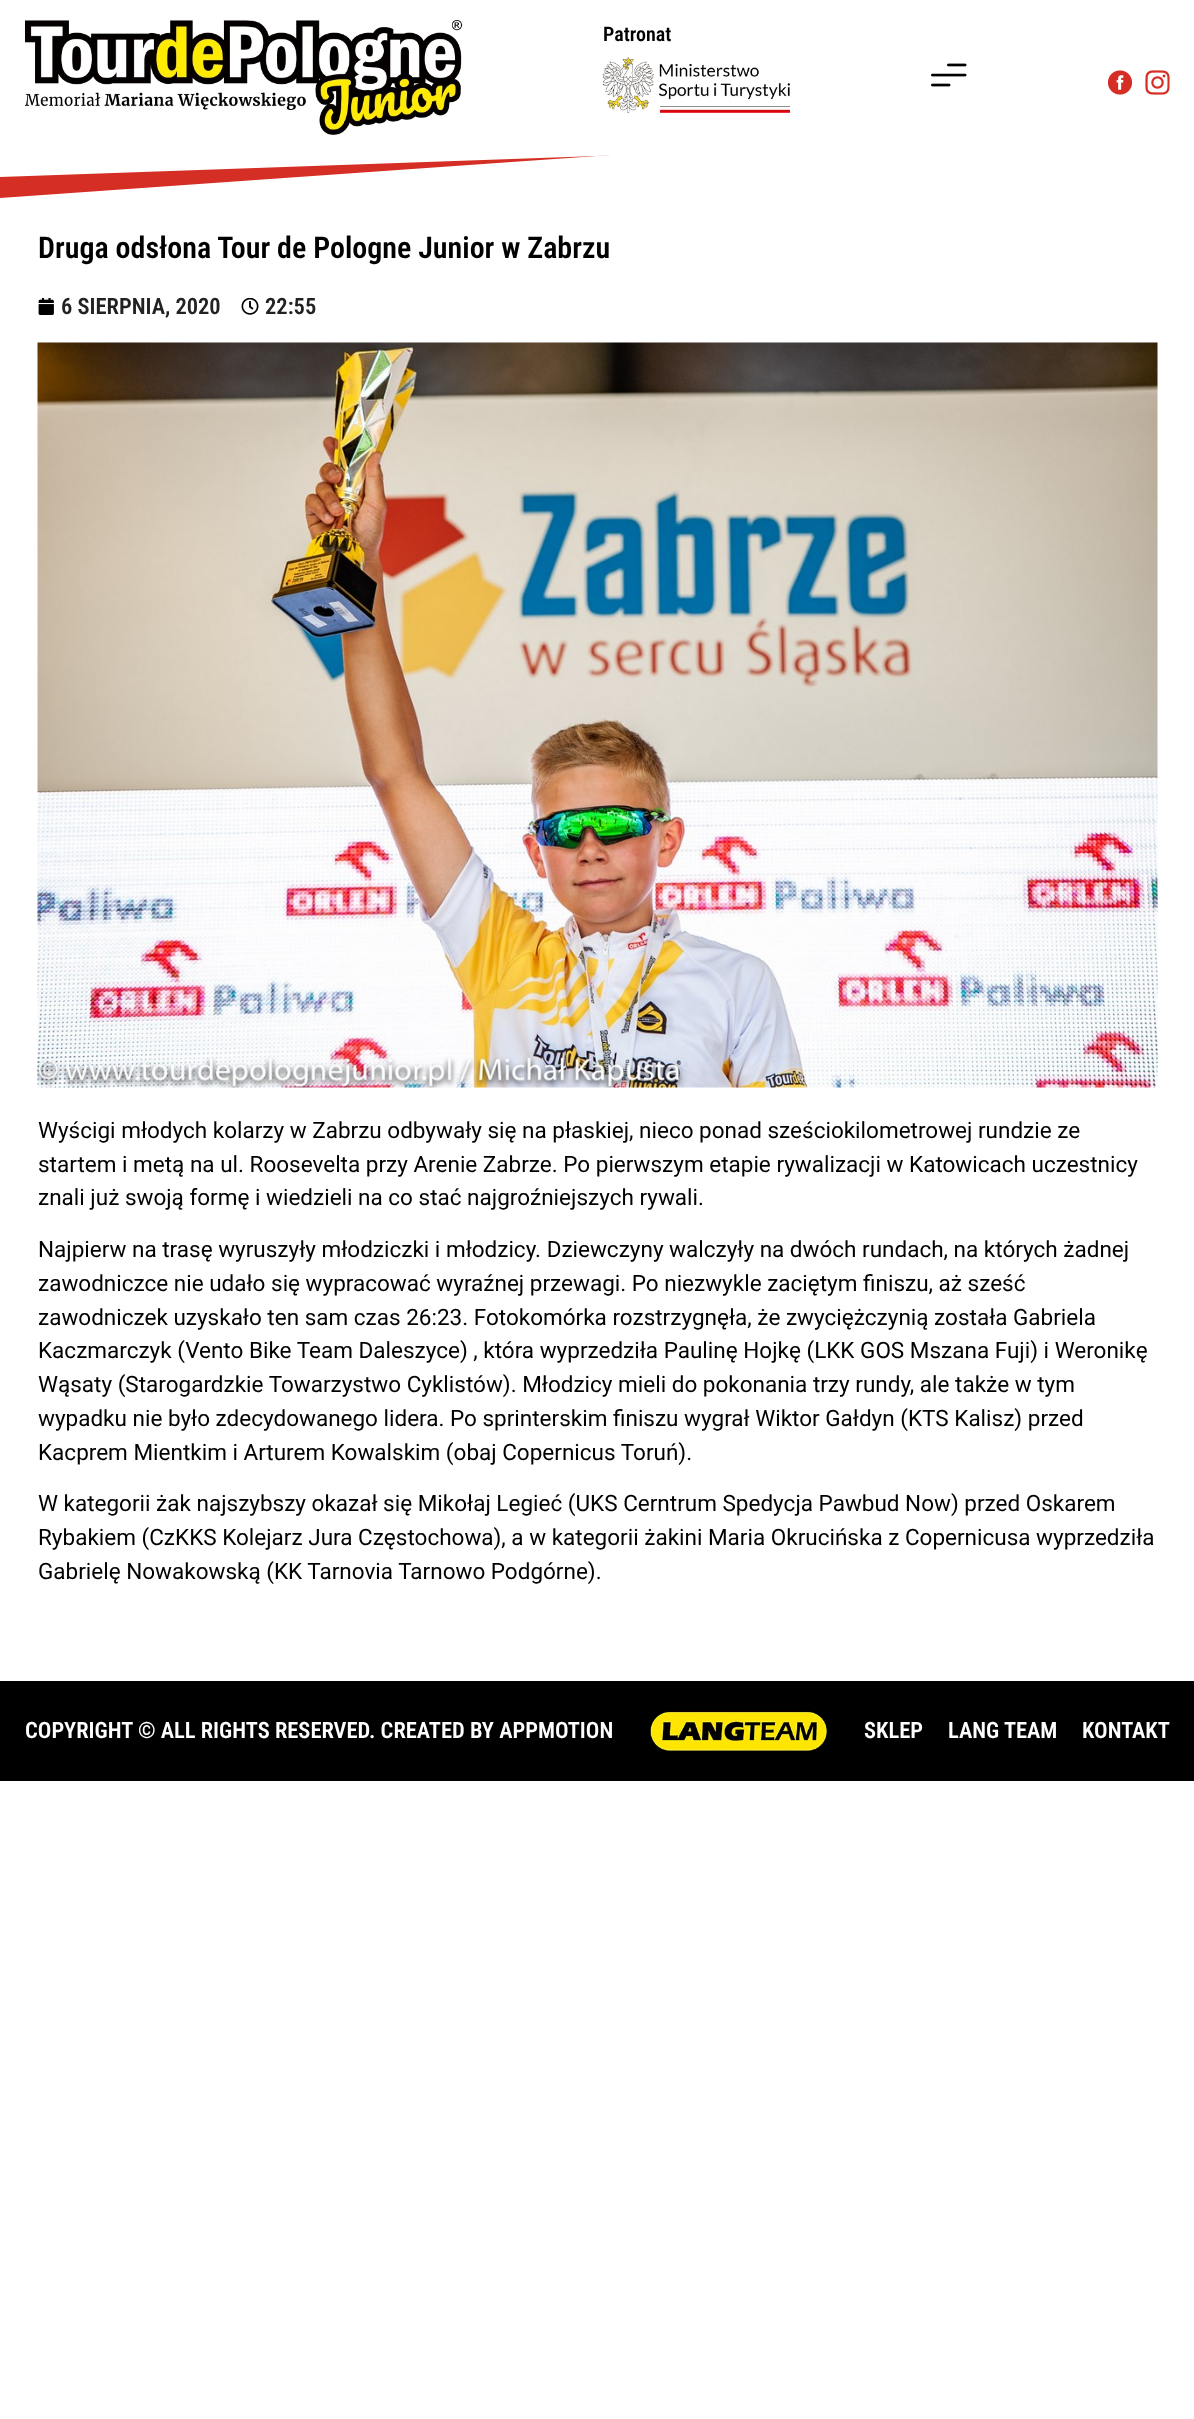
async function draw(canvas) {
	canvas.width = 1194;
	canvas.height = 2419;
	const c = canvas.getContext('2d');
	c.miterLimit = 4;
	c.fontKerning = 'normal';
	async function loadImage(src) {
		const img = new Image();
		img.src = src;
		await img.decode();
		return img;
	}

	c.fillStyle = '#fff';
	c.fillRect(0, 0, 1194, 2419);
	c.fillStyle = '#d52e25';
	c.beginPath();
	c.moveTo(0, -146);
	c.lineTo(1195, -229);
	c.lineTo(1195, 114);
	c.lineTo(0, 198);
	c.closePath();
	c.fill();
	c.fillStyle = '#fff';
	c.beginPath();
	c.moveTo(0, -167);
	c.lineTo(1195, -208);
	c.lineTo(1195, 135);
	c.lineTo(0, 177);
	c.closePath();
	c.fill();
	c.drawImage(await loadImage('img1.png'), 25, 20, 438, 115);
	c.font = '600 20px Roboto Condensed';
	c.fillStyle = '#000';
	c.fillText('Patronat', 603, 41);
	c.drawImage(await loadImage('img2.png'), 602, 57, 188, 56);
	c.drawImage(await loadImage('img3.png'), 931, 63, 36, 24);
	c.drawImage(await loadImage('img4.png'), 1108, 70, 25, 25);
	c.drawImage(await loadImage('img5.png'), 1145, 70, 25, 25);
	c.font = '600 30px Roboto Condensed';
	c.fillText('Druga odsłona Tour de Pologne Junior w Zabrzu', 38, 258);
	c.drawImage(await loadImage('img6.png'), 38, 298, 16, 17);
	c.font = '600 22.5px Roboto Condensed';
	c.fillStyle = '#222';
	c.fillText('6 SIERPNIA, 2020', 61, 314);
	c.drawImage(await loadImage('img7.png'), 241, 298, 18, 17);
	c.fillText('22:55', 265, 314);
	c.drawImage(await loadImage('img8.png'), 37, 342, 1121, 746);
	c.font = '22.5px Roboto';
	c.fillStyle = '#000';
	for (const [text, x, y] of [
		['Wyścigi młodych kolarzy w Zabrzu odbywały się na płaskiej, nieco ponad sześciokilometrowej rundzie ze', 38, 1138],
		['startem i metą na ul. Roosevelta przy Arenie Zabrze. Po pierwszym etapie rywalizacji w Katowicach uczestnicy', 38, 1172],
		['znali już swoją formę i wiedzieli na co stać najgroźniejszych rywali.', 38, 1205],
		['Najpierw na trasę wyruszyły młodziczki i młodzicy. Dziewczyny walczyły na dwóch rundach, na których żadnej', 38, 1257],
		['zawodniczce nie udało się wypracować wyraźnej przewagi. Po niezwykle zaciętym finiszu, aż sześć', 38, 1291],
		['zawodniczek uzyskało ten sam czas 26:23. Fotokomórka rozstrzygnęła, że zwyciężczynią została Gabriela', 38, 1325],
		['Kaczmarczyk (Vento Bike Team Daleszyce) , która wyprzedziła Paulinę Hojkę (LKK GOS Mszana Fuji) i Weronikę', 38, 1358],
		['Wąsaty (Starogardzkie Towarzystwo Cyklistów). Młodzicy mieli do pokonania trzy rundy, ale także w tym', 38, 1392],
		['wypadku nie było zdecydowanego lidera. Po sprinterskim finiszu wygrał Wiktor Gałdyn (KTS Kalisz) przed', 38, 1426],
		['Kacprem Mientkim i Arturem Kowalskim (obaj Copernicus Toruń).', 38, 1460],
		['W kategorii żak najszybszy okazał się Mikołaj Legieć (UKS Cerntrum Spedycja Pawbud Now) przed Oskarem', 38, 1511],
		['Rybakiem (CzKKS Kolejarz Jura Częstochowa), a w kategorii żakini Maria Okrucińska z Copernicusa wyprzedziła', 38, 1545],
		['Gabrielę Nowakowską (KK Tarnovia Tarnowo Podgórne).', 38, 1579],
	]) {
		c.fillText(text, x, y);
	}
	c.fillRect(0, 1681, 1194, 100);
	c.font = '600 22.5px Roboto Condensed';
	c.fillStyle = '#fff';
	c.fillText('COPYRIGHT © ALL RIGHTS RESERVED. CREATED BY APPMOTION', 25, 1738);
	c.drawImage(await loadImage('img9.png'), 650, 1707, 183, 45);
	for (const [text, x, y] of [
		['SKLEP', 864, 1738],
		['LANG TEAM', 948, 1738],
		['KONTAKT', 1082, 1738],
	]) {
		c.fillText(text, x, y);
	}
}

draw(document.querySelector('canvas'));
